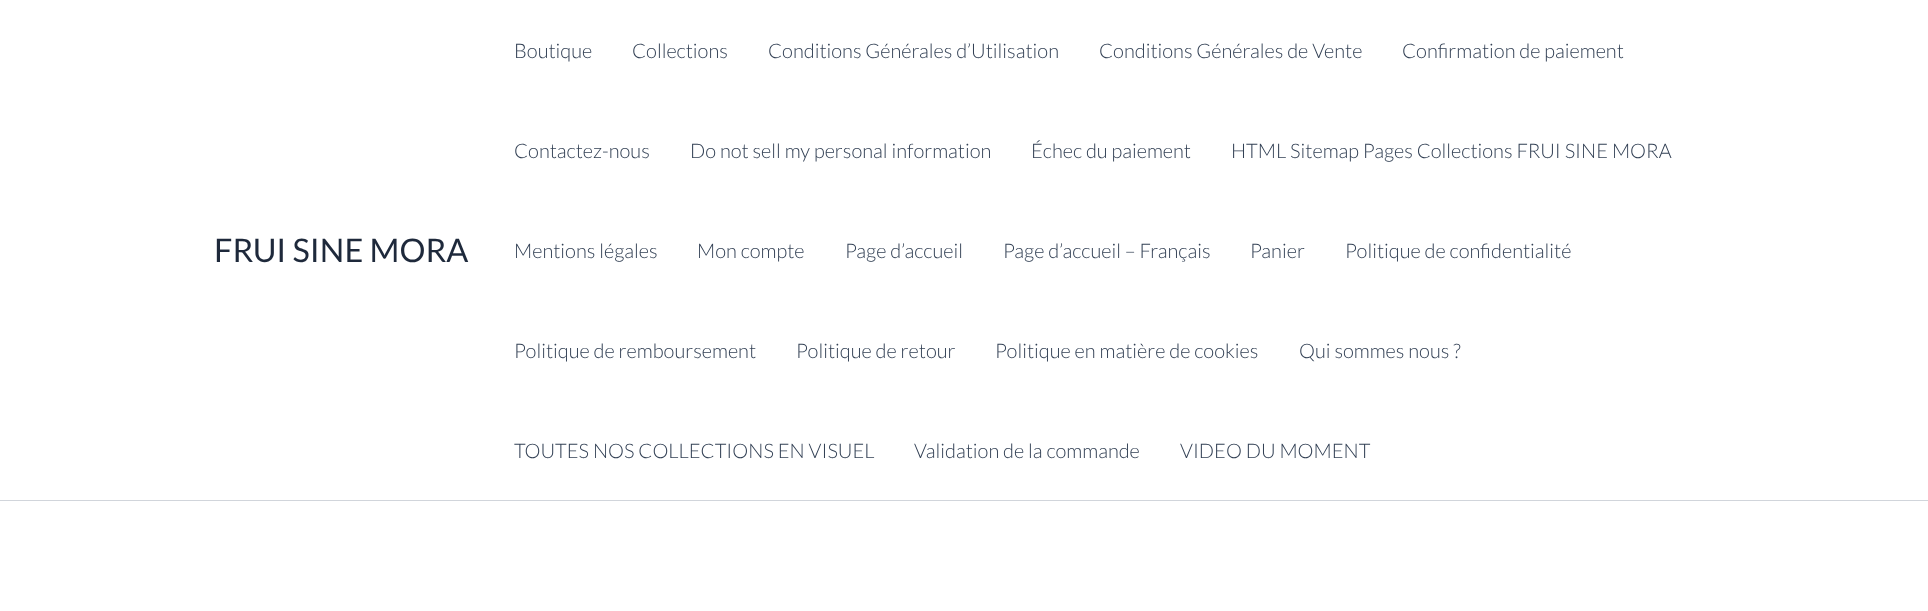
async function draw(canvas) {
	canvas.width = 1928;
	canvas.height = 611;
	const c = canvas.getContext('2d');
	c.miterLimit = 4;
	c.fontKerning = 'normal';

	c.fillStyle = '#fff';
	c.fillRect(0, 0, 1928, 611);
	c.fillStyle = '#d1d5db';
	c.fillRect(0, 500, 1928, 1);
	c.font = '32.5px Lato';
	c.fillStyle = '#1e293b';
	c.fillText('FRUI SINE MORA', 214, 262);
	c.font = '300 20px Lato';
	c.fillStyle = '#334155';
	for (const [text, x, y] of [
		['Boutique', 514, 58],
		['Collections', 632, 58],
		['Conditions Générales d’Utilisation', 768, 58],
		['Conditions Générales de Vente', 1099, 58],
		['Confirmation de paiement', 1402, 58],
		['Contactez-nous', 514, 158],
		['Do not sell my personal information', 690, 158],
		['Échec du paiement', 1031, 158],
		['HTML Sitemap Pages Collections FRUI SINE MORA', 1231, 158],
		['Mentions légales', 514, 258],
		['Mon compte', 697, 258],
		['Page d’accueil', 845, 258],
		['Page d’accueil – Français', 1003, 258],
		['Panier', 1250, 258],
		['Politique de confidentialité', 1345, 258],
		['Politique de remboursement', 514, 358],
		['Politique de retour', 796, 358],
		['Politique en matière de cookies', 995, 358],
		['Qui sommes nous ?', 1299, 358],
		['TOUTES NOS COLLECTIONS EN VISUEL', 514, 458],
		['Validation de la commande', 914, 458],
		['VIDEO DU MOMENT', 1180, 458],
	]) {
		c.fillText(text, x, y);
	}
}

draw(document.querySelector('canvas'));
